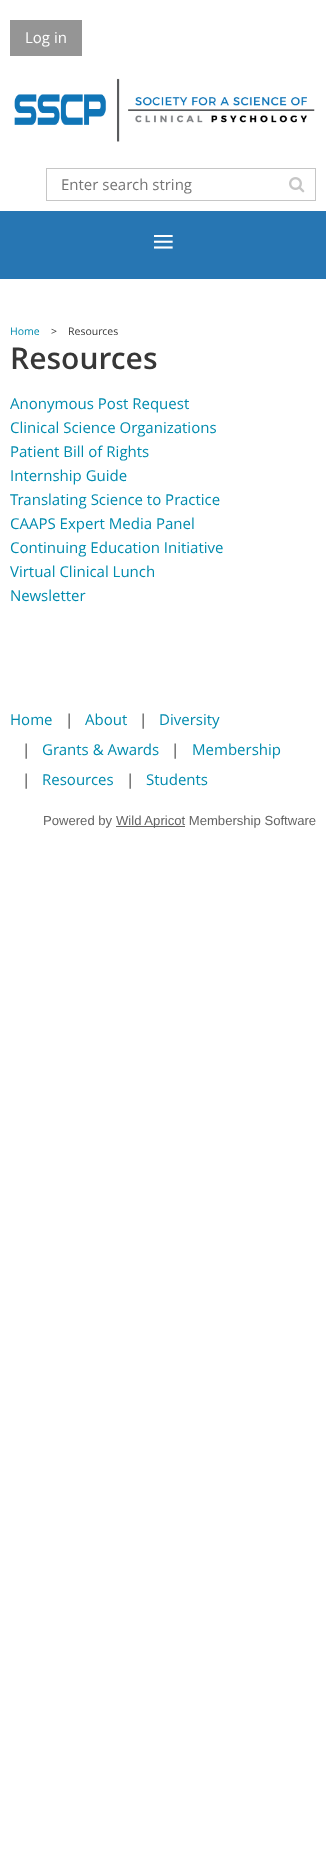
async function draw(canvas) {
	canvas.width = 326;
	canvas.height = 1874;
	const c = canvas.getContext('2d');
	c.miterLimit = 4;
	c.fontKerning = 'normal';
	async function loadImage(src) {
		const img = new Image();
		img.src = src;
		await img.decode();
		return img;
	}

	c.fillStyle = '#fff';
	c.fillRect(0, 0, 326, 1874);
	c.fillStyle = '#959595';
	c.fillRect(10, 20, 72, 36);
	c.font = '15px Open Sans';
	c.fillStyle = '#fff';
	c.fillText('Log in', 25, 43);
	c.drawImage(await loadImage('img1.png'), 14, 78, 301, 64);
	c.strokeStyle = '#c6c6c6';
	c.strokeRect(46.5, 168.5, 269, 32);
	c.fillStyle = '#757575';
	c.fillText('Enter search string', 61, 190);
	c.drawImage(await loadImage('img2.png'), 289, 177, 16, 16);
	c.fillStyle = '#2776b3';
	c.fillRect(0, 211, 326, 68);
	c.font = '40px Liberation Serif';
	c.fillStyle = '#fff';
	c.fillText('≡', 152, 255);
	c.font = '10.5px Open Sans';
	c.fillStyle = '#008bae';
	c.fillText('Home', 10, 335);
	c.fillStyle = '#373737';
	c.fillText('>', 51, 335);
	c.fillText('Resources', 68, 335);
	c.font = '600 30px Open Sans';
	c.fillText('Resources', 10, 369);
	c.font = '15px Open Sans';
	c.fillStyle = '#008bae';
	for (const [text, x, y] of [
		['Anonymous Post Request', 10, 409],
		['Clinical Science Organizations', 10, 433],
		['Patient Bill of Rights', 10, 457],
		['Internship Guide', 10, 481],
		['Translating Science to Practice', 10, 505],
		['CAAPS Expert Media Panel', 10, 529],
		['Continuing Education Initiative', 10, 553],
		['Virtual Clinical Lunch', 10, 577],
		['Newsletter', 10, 601],
		['Home', 10, 725],
	]) {
		c.fillText(text, x, y);
	}
	c.fillStyle = '#373737';
	c.fillText('|', 65, 725);
	c.fillStyle = '#008bae';
	c.fillText('About', 85, 725);
	c.fillStyle = '#373737';
	c.fillText('|', 139, 725);
	c.fillStyle = '#008bae';
	c.fillText('Diversity', 159, 725);
	c.fillStyle = '#373737';
	c.fillText('|', 22, 755);
	c.fillStyle = '#008bae';
	c.fillText('Grants & Awards', 42, 755);
	c.fillStyle = '#373737';
	c.fillText('|', 171, 755);
	c.fillStyle = '#008bae';
	c.fillText('Membership', 192, 755);
	c.fillStyle = '#373737';
	c.fillText('|', 22, 785);
	c.fillStyle = '#008bae';
	c.fillText('Resources', 42, 785);
	c.fillStyle = '#373737';
	c.fillText('|', 126, 785);
	c.fillStyle = '#008bae';
	c.fillText('Students', 146, 785);
	c.font = '13.1px Liberation Sans';
	c.fillStyle = '#646464';
	c.fillText('Powered by', 43, 825);
	c.fillRect(116, 826, 69, 1);
	c.fillText('Wild Apricot Membership Software', 116, 825);
}

draw(document.querySelector('canvas'));
